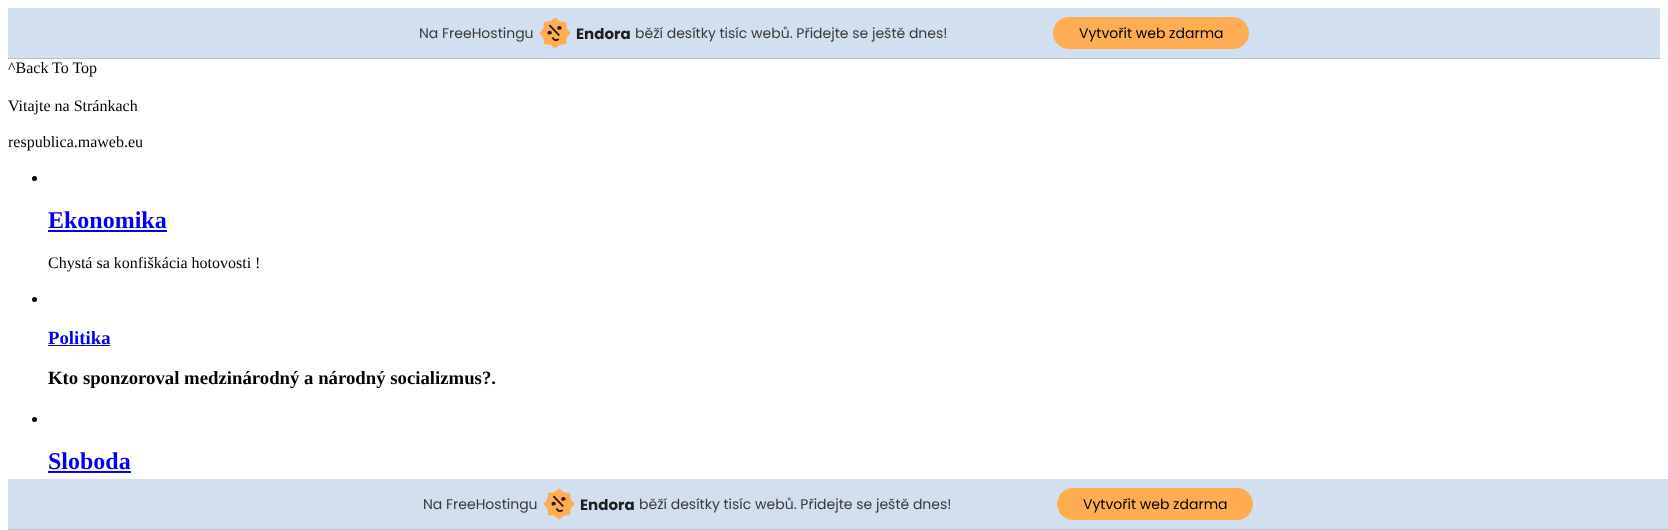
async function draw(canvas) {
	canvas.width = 1668;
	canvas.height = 530;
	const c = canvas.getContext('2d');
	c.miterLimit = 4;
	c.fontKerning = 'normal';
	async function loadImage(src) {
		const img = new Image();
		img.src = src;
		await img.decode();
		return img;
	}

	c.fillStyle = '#fff';
	c.fillRect(0, 0, 1668, 530);
	c.fillStyle = '#d2dfef';
	c.fillRect(8, 8, 1652, 50);
	c.fillStyle = '#bebfc4';
	c.fillRect(8, 58, 1652, 1);
	c.font = '14px Poppins';
	c.fillStyle = '#3a3a3a';
	c.fillText('Na FreeHostingu', 419, 38);
	c.drawImage(await loadImage('img1.png'), 539, 17, 32, 32);
	c.font = 'bold 15px Poppins';
	c.fillStyle = '#1e1e1e';
	c.fillText('Endora', 576, 39);
	c.font = '14px Poppins';
	c.fillStyle = '#3a3a3a';
	c.fillText('běží desítky tisíc webů. Přidejte se ještě dnes!', 635, 38);
	c.fillStyle = '#ffac52';
	c.beginPath();
	c.roundRect(1053, 17, 196, 32, 16);
	c.fill();
	c.fillStyle = '#000';
	c.fillText('Vytvořit web zdarma', 1079, 38);
	c.font = '16px Liberation Serif';
	for (const [text, x, y] of [
		['^Back To Top', 8, 73],
		['Vitajte na Stránkach', 8, 111],
		['respublica.maweb.eu', 8, 147],
	]) {
		c.fillText(text, x, y);
	}
	c.beginPath();
	c.arc(34.5, 178.5, 2.5, 0, 2 * Math.PI);
	c.fill();
	c.font = 'bold 24px Liberation Serif';
	c.fillStyle = '#00e';
	c.fillText('Ekonomika', 48, 228);
	c.fillRect(48, 230, 119, 2);
	c.font = '16px Liberation Serif';
	c.fillStyle = '#000';
	c.fillText('Chystá sa konfiškácia hotovosti !', 48, 268);
	c.beginPath();
	c.arc(34.5, 299.5, 2.5, 0, 2 * Math.PI);
	c.fill();
	c.font = 'bold 18.75px Liberation Serif';
	c.fillStyle = '#00e';
	c.fillText('Politika', 48, 344);
	c.fillRect(48, 345, 62, 1);
	c.fillStyle = '#000';
	c.fillText('Kto sponzoroval medzinárodný a národný socializmus?.', 48, 384);
	c.beginPath();
	c.arc(34.5, 419.5, 2.5, 0, 2 * Math.PI);
	c.fill();
	c.font = 'bold 24px Liberation Serif';
	c.fillStyle = '#00e';
	c.fillText('Sloboda', 48, 469);
	for (const [x, y, w, h, color] of [
		[48, 471, 83, 2, '#00e'],
		[8, 479, 1660, 50, '#d2dfef'],
		[8, 529, 1660, 1, '#bebfc4'],
	]) {
		c.fillStyle = color;
		c.fillRect(x, y, w, h);
	}
	c.font = '14px Poppins';
	c.fillStyle = '#3a3a3a';
	c.fillText('Na FreeHostingu', 423, 509);
	c.drawImage(await loadImage('img1.png'), 543, 488, 32, 32);
	c.font = 'bold 15px Poppins';
	c.fillStyle = '#1e1e1e';
	c.fillText('Endora', 580, 510);
	c.font = '14px Poppins';
	c.fillStyle = '#3a3a3a';
	c.fillText('běží desítky tisíc webů. Přidejte se ještě dnes!', 639, 509);
	c.fillStyle = '#ffac52';
	c.beginPath();
	c.roundRect(1057, 488, 196, 32, 16);
	c.fill();
	c.fillStyle = '#000';
	c.fillText('Vytvořit web zdarma', 1083, 509);
}

draw(document.querySelector('canvas'));
